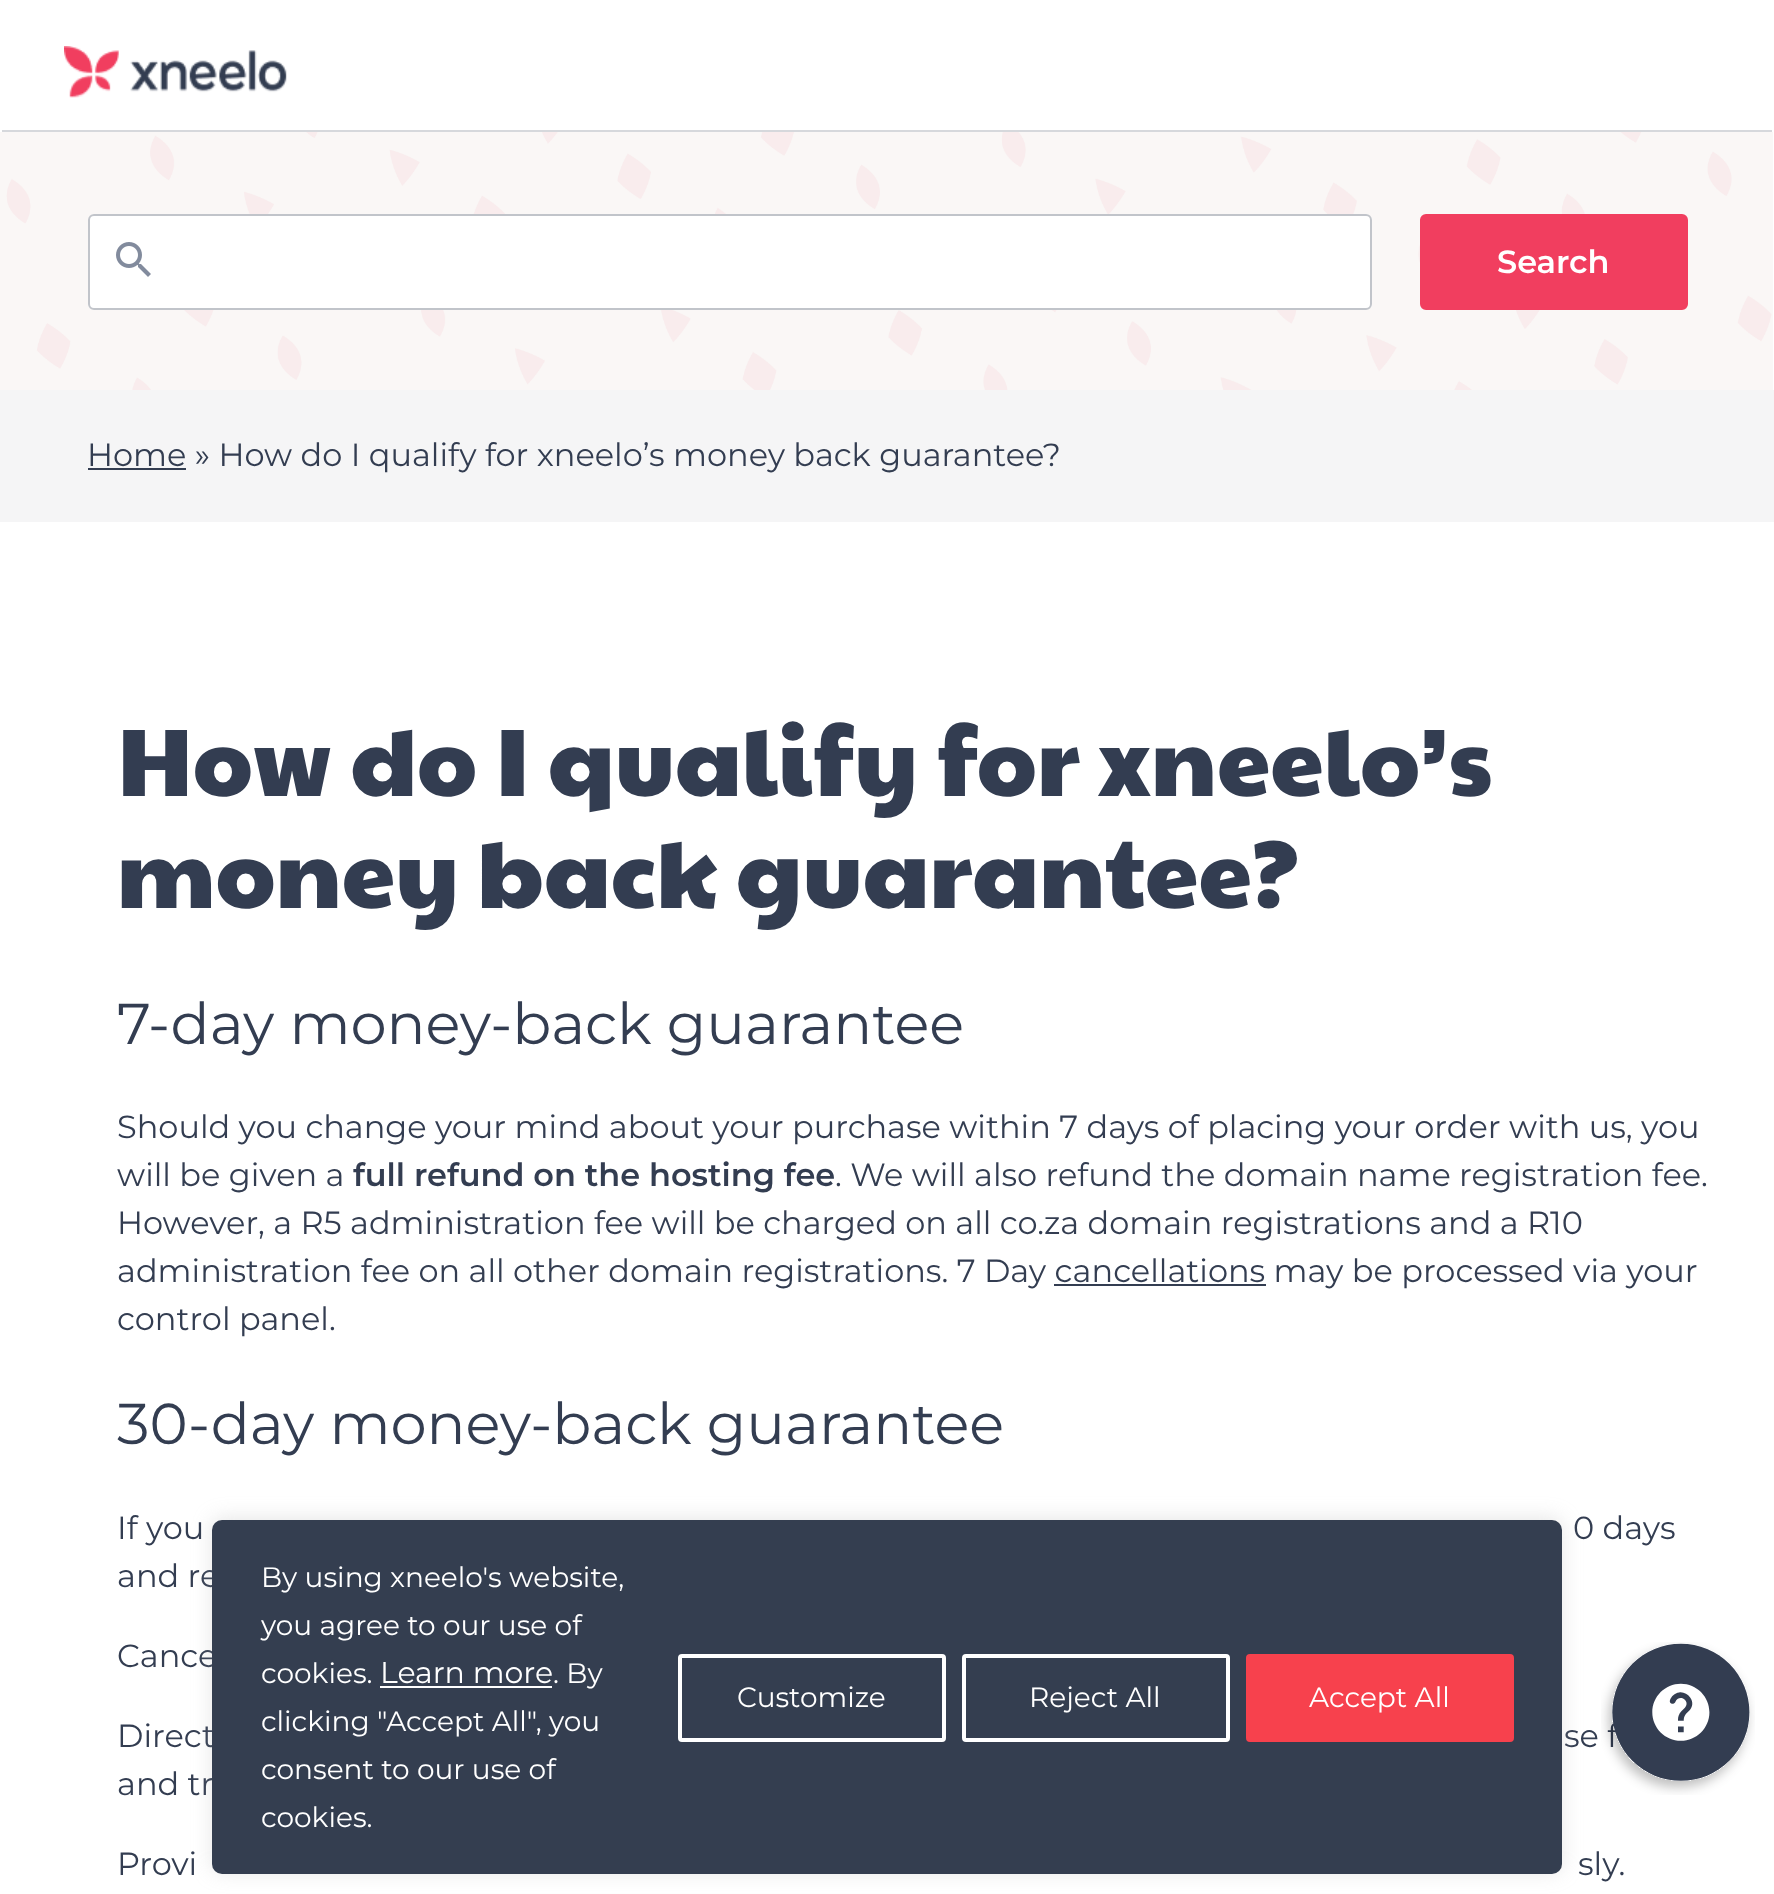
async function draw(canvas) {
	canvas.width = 1774;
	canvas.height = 1894;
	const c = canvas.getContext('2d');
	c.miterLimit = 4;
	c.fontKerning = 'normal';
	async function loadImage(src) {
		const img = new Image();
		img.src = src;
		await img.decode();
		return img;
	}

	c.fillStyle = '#fff';
	c.fillRect(0, 0, 1774, 1894);
	c.fillStyle = '#d6d8dc';
	c.fillRect(2, 130, 1770, 2);
	c.drawImage(await loadImage('img1.png'), 64, 46, 223, 52);
	c.drawImage(await loadImage('img2.png'), 0, 132, 1773, 258);
	c.fillStyle = '#fff';
	c.beginPath();
	c.roundRect(88, 214, 1284, 96, 6);
	c.fill();
	c.drawImage(await loadImage('img3.png'), 116, 242, 35, 35);
	c.beginPath();
	c.roundRect(89, 215, 1282, 94, 5);
	c.strokeStyle = '#c1c4ca';
	c.lineWidth = 2;
	c.stroke();
	c.fillStyle = '#f13e5f';
	c.beginPath();
	c.roundRect(1421, 215, 266, 94, 5);
	c.fill();
	c.strokeStyle = '#f13e5f';
	c.stroke();
	c.font = '100 32px "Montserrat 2"';
	c.fillStyle = '#fff';
	c.fillText('Search', 1497, 273);
	c.fillStyle = '#f5f5f6';
	c.fillRect(0, 390, 1774, 132);
	c.fillStyle = '#333d51';
	c.fillRect(88, 468, 98, 2);
	c.font = '100 32px Montserrat';
	c.fillText('Home » How do I qualify for xneelo’s money back guarantee?', 87, 466);
	c.font = '96px Paytone One';
	c.fillText('How do I qualify for xneelo’s', 117, 796);
	c.fillText('money back guarantee?', 117, 908);
	c.font = '100 57.6px Montserrat';
	c.fillText('7-day money-back guarantee', 117, 1044);
	c.font = '100 32px Montserrat';
	c.fillText('Should you change your mind about your purchase within 7 days of placing your order with us, you', 117, 1138);
	c.fillText('will be given a', 117, 1186);
	c.font = '100 32px "Montserrat 2"';
	c.fillText('full refund on the hosting fee', 353, 1186);
	c.font = '100 32px Montserrat';
	for (const [text, x, y] of [
		['. We will also refund the domain name registration fee.', 835, 1186],
		['However, a R5 administration fee will be charged on all co.za domain registrations and a R10', 117, 1234],
		['administration fee on all other domain registrations. 7 Day cancellations may be processed via your', 117, 1282],
	]) {
		c.fillText(text, x, y);
	}
	c.fillRect(1054, 1284, 212, 2);
	c.fillText('control panel.', 117, 1330);
	c.font = '100 57.6px Montserrat';
	c.fillText('30-day money-back guarantee', 117, 1444);
	c.font = '100 32px Montserrat';
	for (const [text, x, y] of [
		['If you', 117, 1539],
		['0 days', 1573, 1539],
		['and re', 117, 1587],
		['Cance', 117, 1667],
		['Direct', 117, 1747],
		['se f', 1564, 1747],
		['and tr', 117, 1795],
		['Provi', 117, 1875],
		['sly.', 1578, 1875],
	]) {
		c.fillText(text, x, y);
	}
	c.fillStyle = '#acabab4d';
	c.filter = 'blur(10px)';
	c.beginPath();
	c.roundRect(212, 1518, 1350, 354, 10);
	c.fill();
	c.filter = 'none';
	c.fillStyle = '#343e50';
	c.beginPath();
	c.roundRect(212, 1520, 1350, 354, 10);
	c.fill();
	c.font = '100 28px Montserrat';
	c.fillStyle = '#fff';
	for (const [text, x, y] of [
		['By using xneelo\'s website,', 261, 1587],
		['you agree to our use of', 261, 1635],
		['cookies.', 261, 1683],
	]) {
		c.fillText(text, x, y);
	}
	c.font = '100 30px Montserrat';
	c.fillText('Learn more', 380, 1683);
	c.fillRect(380, 1686, 172, 2);
	c.font = '100 28px Montserrat';
	for (const [text, x, y] of [
		['. By', 553, 1683],
		['clicking "Accept All", you', 261, 1731],
		['consent to our use of', 261, 1779],
		['cookies.', 261, 1827],
	]) {
		c.fillText(text, x, y);
	}
	c.beginPath();
	c.roundRect(680, 1656, 264, 84, 2);
	c.strokeStyle = '#fff';
	c.lineWidth = 4;
	c.stroke();
	c.fillText('Customize', 737, 1707);
	c.beginPath();
	c.roundRect(964, 1656, 264, 84, 2);
	c.stroke();
	c.fillText('Reject All', 1029, 1707);
	c.fillStyle = '#f7414d';
	c.beginPath();
	c.roundRect(1248, 1656, 264, 84, 2);
	c.fill();
	c.strokeStyle = '#f7414d';
	c.stroke();
	c.fillStyle = '#fff';
	c.fillText('Accept All', 1309, 1707);
	c.drawImage(await loadImage('img4.png'), 1601, 1642, 154, 153);
}

draw(document.querySelector('canvas'));
